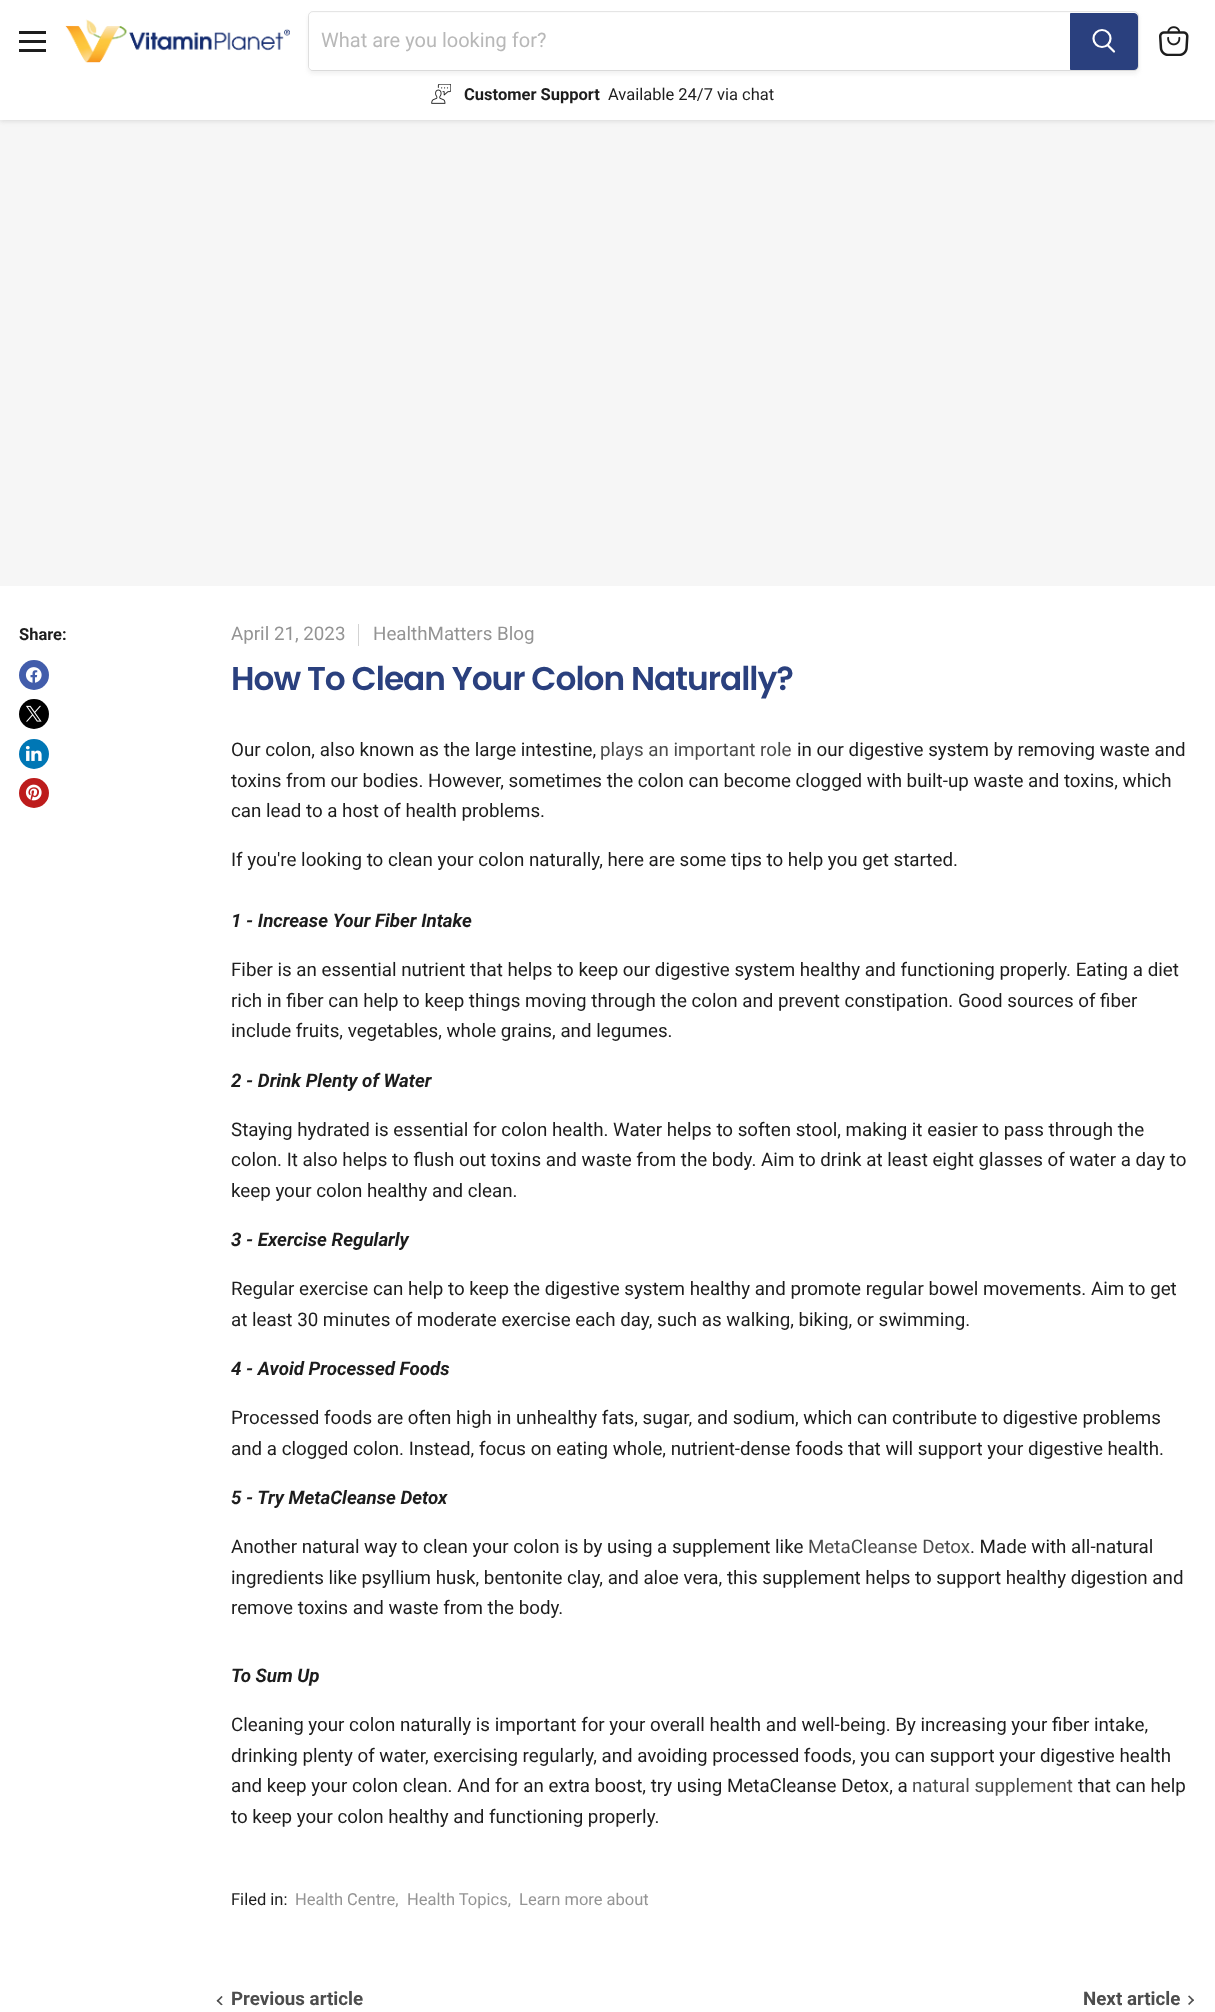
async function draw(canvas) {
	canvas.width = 1215;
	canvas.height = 2012;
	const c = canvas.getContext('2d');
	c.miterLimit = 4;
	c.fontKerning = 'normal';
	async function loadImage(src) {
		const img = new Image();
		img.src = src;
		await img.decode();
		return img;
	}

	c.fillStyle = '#fff';
	c.fillRect(0, 0, 1215, 2012);
	c.fillStyle = '#f6f6f6';
	c.fillRect(0, 120, 1215, 466);
	c.fillStyle = '#80808040';
	c.filter = 'blur(2.5px)';
	c.beginPath();
	c.rect(0, 1, 1215, 120);
	c.fill();
	c.filter = 'none';
	for (const [x, y, w, h, color] of [
		[0, 0, 1215, 120, '#fff'],
		[19, 31, 27, 3, '#1d1d1d'],
		[19, 40, 27, 3, '#1d1d1d'],
		[19, 49, 27, 3, '#1d1d1d'],
	]) {
		c.fillStyle = color;
		c.fillRect(x, y, w, h);
	}
	c.drawImage(await loadImage('img1.png'), 65, 19, 225, 44);
	c.fillStyle = '#8080801c';
	c.filter = 'blur(2px)';
	c.beginPath();
	c.roundRect(308, 14, 831, 60, 5);
	c.fill();
	c.filter = 'none';
	c.beginPath();
	c.roundRect(308.5, 11.5, 830, 59, 4.5);
	c.strokeStyle = '#80808033';
	c.stroke();
	c.fillStyle = '#fff';
	c.beginPath();
	c.roundRect(309, 13, 761, 57, [4, 0, 0, 4]);
	c.fill();
	c.font = '20px Roboto';
	c.fillStyle = '#b8b8b8';
	c.fillText('What are you looking for?', 321, 47);
	c.fillStyle = '#2a407e';
	c.beginPath();
	c.roundRect(1070.5, 13.5, 67, 56, [0, 3.5, 3.5, 0]);
	c.fill();
	c.strokeStyle = '#2a407e';
	c.stroke();
	c.beginPath();
	c.moveTo(1114, 51.5);
	c.lineTo(1108, 45.5);
	c.strokeStyle = '#fff';
	c.lineWidth = 2.2;
	c.lineCap = 'round';
	c.stroke();
	c.beginPath();
	c.arc(1102, 38.5, 8.5, 0, 2 * Math.PI);
	c.stroke();
	c.drawImage(await loadImage('img2.png'), 431, 84, 20, 20);
	c.font = 'bold 16.5px Roboto';
	c.fillStyle = '#1d1d1d';
	c.fillText('Customer Support', 464, 100);
	c.font = '16.5px Roboto';
	c.fillText('Available 24/7 via chat', 608, 100);
	c.drawImage(await loadImage('img3.png'), 1159, 26, 30, 30);
	c.font = 'bold 16.5px Roboto';
	c.fillText('Share:', 19, 640);
	c.fillStyle = '#425dab';
	c.beginPath();
	c.arc(34, 675, 15, 0, 2 * Math.PI);
	c.fill();
	c.drawImage(await loadImage('img4.png'), 25, 667, 17, 16);
	c.fillStyle = '#000';
	c.beginPath();
	c.arc(34, 714, 15, 0, 2 * Math.PI);
	c.fill();
	c.drawImage(await loadImage('img5.png'), 26, 705, 16, 17);
	c.fillStyle = '#0077b5';
	c.beginPath();
	c.arc(34, 754, 15, 0, 2 * Math.PI);
	c.fill();
	c.drawImage(await loadImage('img6.png'), 25, 745, 17, 16);
	c.fillStyle = '#bd1c1c';
	c.beginPath();
	c.arc(34, 793, 15, 0, 2 * Math.PI);
	c.fill();
	c.drawImage(await loadImage('img7.png'), 25, 784, 17, 17);
	c.font = '18.75px Roboto';
	c.fillStyle = '#949494';
	c.fillText('April 21, 2023', 231, 640);
	c.fillStyle = '#d3d3d3';
	c.fillRect(358, 624, 1, 22);
	c.fillStyle = '#949494';
	c.fillText('HealthMatters Blog', 373, 640);
	c.letterSpacing = '-1px';
	c.font = '600 32.8px Poppins';
	c.fillStyle = '#2a407e';
	c.fillText('How To Clean Your Colon Naturally?', 231, 690);
	c.letterSpacing = '0px';
	c.font = '18.75px Roboto';
	c.fillStyle = '#1d1d1d';
	c.fillText('Our colon, also known as the large intestine,', 231, 756);
	c.fillStyle = '#4d4d4d';
	c.fillText('plays an important role', 600, 756);
	c.fillStyle = '#1d1d1d';
	for (const [text, x, y] of [
		['in our digestive system by removing waste and', 797, 756],
		['toxins from our bodies. However, sometimes the colon can become clogged with built-up waste and toxins, which', 231, 787],
		['can lead to a host of health problems.', 231, 817],
		['If you\'re looking to clean your colon naturally, here are some tips to help you get started.', 231, 866],
	]) {
		c.fillText(text, x, y);
	}
	c.font = 'italic bold 18.75px Roboto';
	c.fillText('1 - Increase Your Fiber Intake', 231, 927);
	c.font = '18.75px Roboto';
	for (const [text, x, y] of [
		['Fiber is an essential nutrient that helps to keep our digestive system healthy and functioning properly. Eating a diet', 231, 976],
		['rich in fiber can help to keep things moving through the colon and prevent constipation. Good sources of fiber', 231, 1007],
		['include fruits, vegetables, whole grains, and legumes.', 231, 1037],
	]) {
		c.fillText(text, x, y);
	}
	c.font = 'italic bold 18.75px Roboto';
	c.fillText('2 - Drink Plenty of Water', 231, 1087);
	c.font = '18.75px Roboto';
	for (const [text, x, y] of [
		['Staying hydrated is essential for colon health. Water helps to soften stool, making it easier to pass through the', 231, 1136],
		['colon. It also helps to flush out toxins and waste from the body. Aim to drink at least eight glasses of water a day to', 231, 1166],
		['keep your colon healthy and clean.', 231, 1197],
	]) {
		c.fillText(text, x, y);
	}
	c.font = 'italic bold 18.75px Roboto';
	c.fillText('3 - Exercise Regularly', 231, 1246);
	c.font = '18.75px Roboto';
	c.fillText('Regular exercise can help to keep the digestive system healthy and promote regular bowel movements. Aim to get', 231, 1295);
	c.fillText('at least 30 minutes of moderate exercise each day, such as walking, biking, or swimming.', 231, 1326);
	c.font = 'italic bold 18.75px Roboto';
	c.fillText('4 - Avoid Processed Foods', 231, 1375);
	c.font = '18.75px Roboto';
	c.fillText('Processed foods are often high in unhealthy fats, sugar, and sodium, which can contribute to digestive problems', 231, 1424);
	c.fillText('and a clogged colon. Instead, focus on eating whole, nutrient-dense foods that will support your digestive health.', 231, 1455);
	c.font = 'italic bold 18.75px Roboto';
	c.fillText('5 - Try MetaCleanse Detox', 231, 1504);
	c.font = '18.75px Roboto';
	c.fillText('Another natural way to clean your colon is by using a supplement like', 231, 1553);
	c.fillStyle = '#4d4d4d';
	c.fillText('MetaCleanse Detox', 808, 1553);
	c.fillStyle = '#1d1d1d';
	for (const [text, x, y] of [
		['. Made with all-natural', 970, 1553],
		['ingredients like psyllium husk, bentonite clay, and aloe vera, this supplement helps to support healthy digestion and', 231, 1584],
		['remove toxins and waste from the body.', 231, 1614],
	]) {
		c.fillText(text, x, y);
	}
	c.font = 'italic bold 18.75px Roboto';
	c.fillText('To Sum Up', 231, 1682);
	c.font = '18.75px Roboto';
	for (const [text, x, y] of [
		['Cleaning your colon naturally is important for your overall health and well-being. By increasing your fiber intake,', 231, 1731],
		['drinking plenty of water, exercising regularly, and avoiding processed foods, you can support your digestive health', 231, 1762],
		['and keep your colon clean. And for an extra boost, try using MetaCleanse Detox, a', 231, 1792],
	]) {
		c.fillText(text, x, y);
	}
	c.fillStyle = '#4d4d4d';
	c.fillText('natural supplement', 912, 1792);
	c.fillStyle = '#1d1d1d';
	c.fillText('that can help', 1078, 1792);
	c.fillText('to keep your colon healthy and functioning properly.', 231, 1823);
	c.font = '16.5px Roboto';
	c.fillText('Filed in:', 231, 1905);
	c.fillStyle = '#949494';
	for (const [text, x, y] of [
		['Health Centre,', 295, 1905],
		['Health Topics,', 407, 1905],
		['Learn more about', 519, 1905],
	]) {
		c.fillText(text, x, y);
	}
	c.drawImage(await loadImage('img8.png'), 216, 1996, 7, 10);
	c.font = 'bold 18.75px Roboto';
	c.fillStyle = '#4d4d4d';
	c.fillText('Previous article', 231, 2005);
	c.fillText('Next article', 1083, 2005);
	c.drawImage(await loadImage('img9.png'), 1188, 1995, 6, 10);
}

draw(document.querySelector('canvas'));
